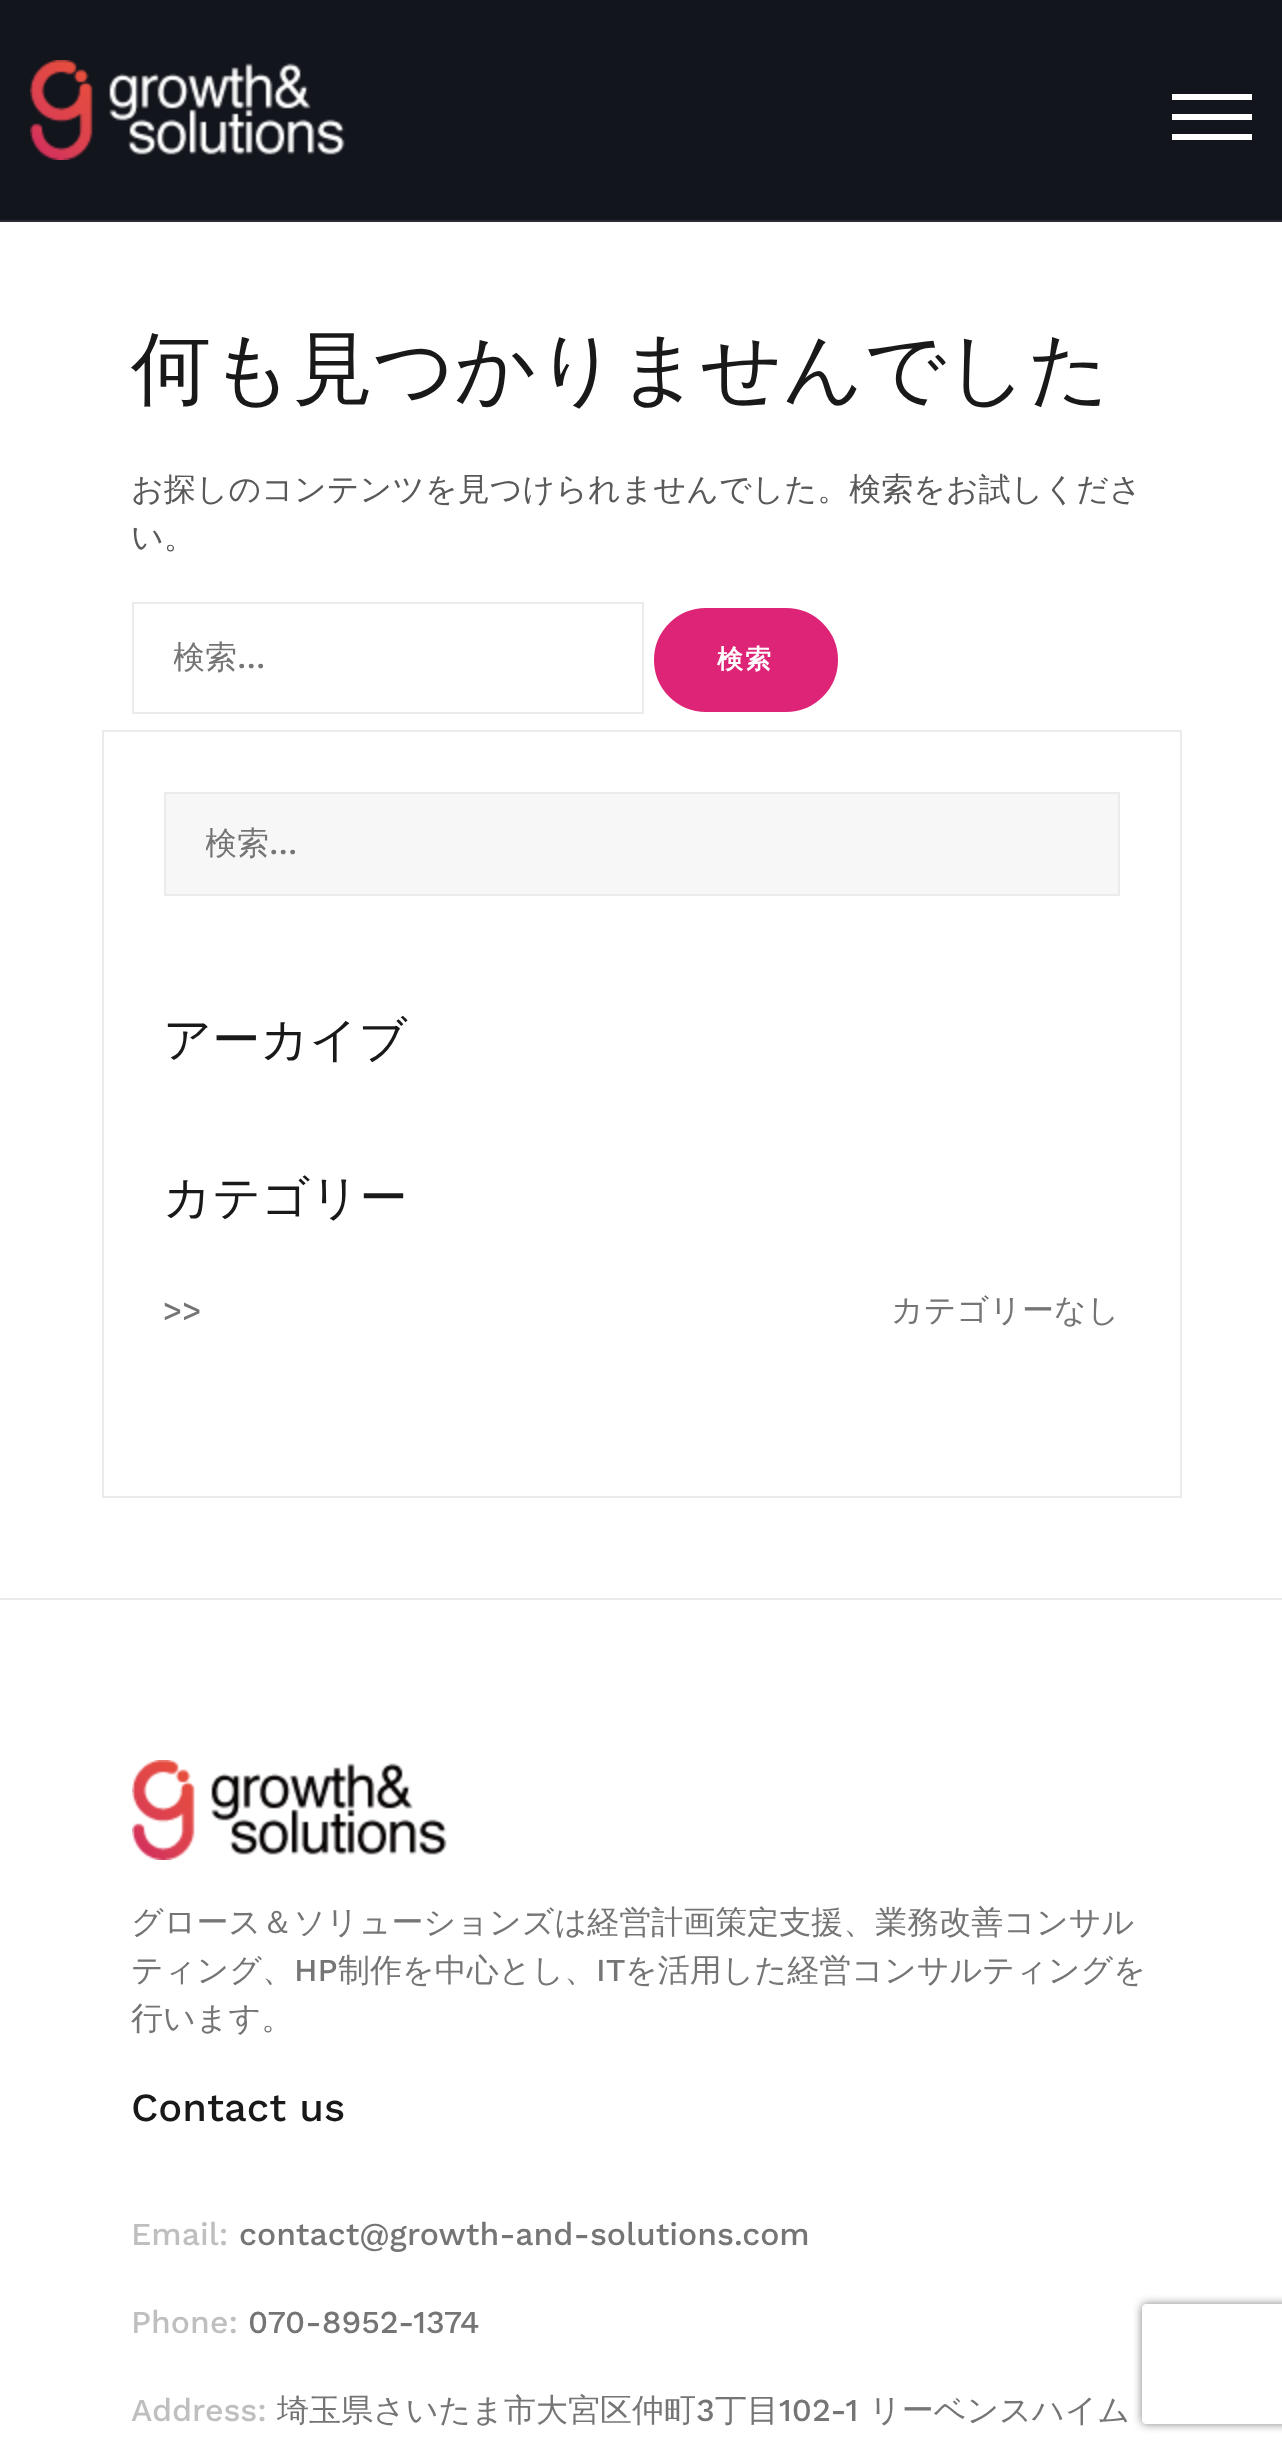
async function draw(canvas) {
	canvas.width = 1282;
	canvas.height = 2452;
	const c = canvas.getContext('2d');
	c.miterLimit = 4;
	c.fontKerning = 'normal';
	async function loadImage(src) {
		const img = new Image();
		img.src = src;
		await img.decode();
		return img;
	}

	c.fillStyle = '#fff';
	c.fillRect(0, 0, 1282, 2452);
	c.fillStyle = '#13151d';
	c.fillRect(0, 0, 1282, 220);
	c.fillStyle = '#2b2c34';
	c.fillRect(0, 220, 1282, 2);
	c.drawImage(await loadImage('img1.png'), 30, 60, 315, 100);
	for (const [x, y, w, h, color] of [
		[1172, 114, 80, 6, '#fff'],
		[1172, 94, 80, 6, '#fff'],
		[1172, 134, 80, 6, '#fff'],
	]) {
		c.fillStyle = color;
		c.fillRect(x, y, w, h);
	}
	c.font = '500 80px WenQuanYi Zen Hei';
	c.fillStyle = '#191919';
	c.fillText('何も見つかりませんでした', 131, 396);
	c.font = '500 32px WenQuanYi Zen Hei';
	c.fillStyle = '#595959';
	c.fillText('お探しのコンテンツを見つけられませんでした。検索をお試しくださ', 131, 500);
	c.fillText('い。', 131, 548);
	c.strokeStyle = '#ebebeb';
	c.lineWidth = 2;
	c.strokeRect(133, 603, 510, 110);
	c.save();
	c.beginPath();
	c.rect(174, 638, 420, 42);
	c.clip();
	c.fillStyle = '#757575';
	c.fillText('検索', 173, 668);
	c.restore();
	c.font = '500 32px Work Sans';
	c.fillStyle = '#757575';
	c.fillText('…', 237, 668);
	c.fillStyle = '#dd2476';
	c.beginPath();
	c.roundRect(656, 610, 180, 100, 50);
	c.fill();
	c.strokeStyle = '#dd2476';
	c.lineWidth = 4;
	c.stroke();
	c.letterSpacing = '2px';
	c.font = 'bold 26px WenQuanYi Zen Hei';
	c.fillStyle = '#fff';
	c.fillText('検索', 717, 668);
	c.strokeStyle = '#ebebeb';
	c.lineWidth = 2;
	c.strokeRect(103, 731, 1078, 766);
	c.fillStyle = '#f7f7f7';
	c.beginPath();
	c.rect(165, 793, 954, 102);
	c.fill();
	c.stroke();
	c.save();
	c.beginPath();
	c.rect(206, 824, 864, 42);
	c.clip();
	c.letterSpacing = '0px';
	c.font = '500 32px WenQuanYi Zen Hei';
	c.fillStyle = '#757575';
	c.fillText('検索', 205, 854);
	c.restore();
	c.letterSpacing = '0px';
	c.font = '500 32px Work Sans';
	c.fillStyle = '#757575';
	c.fillText('…', 269, 854);
	c.font = '500 48px WenQuanYi Zen Hei';
	c.fillStyle = '#191919';
	c.fillText('アーカイブ', 163, 1056);
	c.fillText('カテゴリー', 163, 1214);
	c.font = '500 32px Work Sans';
	c.fillStyle = '#757575';
	c.fillText('>>', 163, 1321);
	c.font = '500 32px WenQuanYi Zen Hei';
	c.fillText('カテゴリーなし', 891, 1321);
	c.fillStyle = '#ebebeb';
	c.fillRect(0, 1598, 1282, 2);
	c.drawImage(await loadImage('img2.png'), 132, 1760, 315, 100);
	c.fillStyle = '#757575';
	c.fillText('グロース＆ソリューションズは経営計画策定支援、業務改善コンサル', 131, 1933);
	c.fillText('ティング、', 131, 1981);
	c.font = '500 32px Work Sans';
	c.fillText('HP', 294, 1981);
	c.font = '500 32px WenQuanYi Zen Hei';
	c.fillText('制作を中心とし、', 338, 1981);
	c.font = '500 32px Work Sans';
	c.fillText('IT', 596, 1981);
	c.font = '500 32px WenQuanYi Zen Hei';
	c.fillText('を活用した経営コンサルティングを', 625, 1981);
	c.fillText('行います。', 131, 2029);
	c.font = '500 40px Work Sans';
	c.fillStyle = '#191919';
	c.fillText('Contact us', 131, 2121);
	c.font = '500 32px Work Sans';
	c.fillStyle = '#bfbfbf';
	c.fillText('Email:', 131, 2245);
	c.fillStyle = '#757575';
	c.fillText('contact@growth-and-solutions.com', 239, 2245);
	c.fillStyle = '#bfbfbf';
	c.fillText('Phone:', 131, 2333);
	c.fillStyle = '#757575';
	c.fillText('070-8952-1374', 248, 2333);
	c.fillStyle = '#bfbfbf';
	c.fillText('Address:', 131, 2421);
	c.font = '500 32px WenQuanYi Zen Hei';
	c.fillStyle = '#757575';
	c.fillText('埼玉県さいたま市大宮区仲町', 277, 2421);
	c.font = '500 32px Work Sans';
	c.fillText('3', 696, 2421);
	c.font = '500 32px WenQuanYi Zen Hei';
	c.fillText('丁目', 715, 2421);
	c.font = '500 32px Work Sans';
	c.fillText('102-1', 779, 2421);
	c.font = '500 32px WenQuanYi Zen Hei';
	c.fillText('リーベンスハイム', 869, 2421);
	c.save();
	c.beginPath();
	c.moveTo(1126, 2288);
	c.lineTo(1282, 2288);
	c.lineTo(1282, 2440);
	c.lineTo(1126, 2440);
	c.closePath();
	c.moveTo(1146, 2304);
	c.lineTo(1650, 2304);
	c.bezierCurveTo(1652, 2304, 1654, 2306, 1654, 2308);
	c.lineTo(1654, 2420);
	c.bezierCurveTo(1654, 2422, 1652, 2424, 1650, 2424);
	c.lineTo(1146, 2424);
	c.bezierCurveTo(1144, 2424, 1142, 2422, 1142, 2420);
	c.lineTo(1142, 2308);
	c.bezierCurveTo(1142, 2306, 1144, 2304, 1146, 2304);
	c.closePath();
	c.clip('evenodd');
	c.fillStyle = '#808080';
	c.filter = 'blur(5px)';
	c.beginPath();
	c.roundRect(1142, 2304, 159, 120, 4);
	c.fill();
	c.filter = 'none';
	c.restore();
}

draw(document.querySelector('canvas'));
